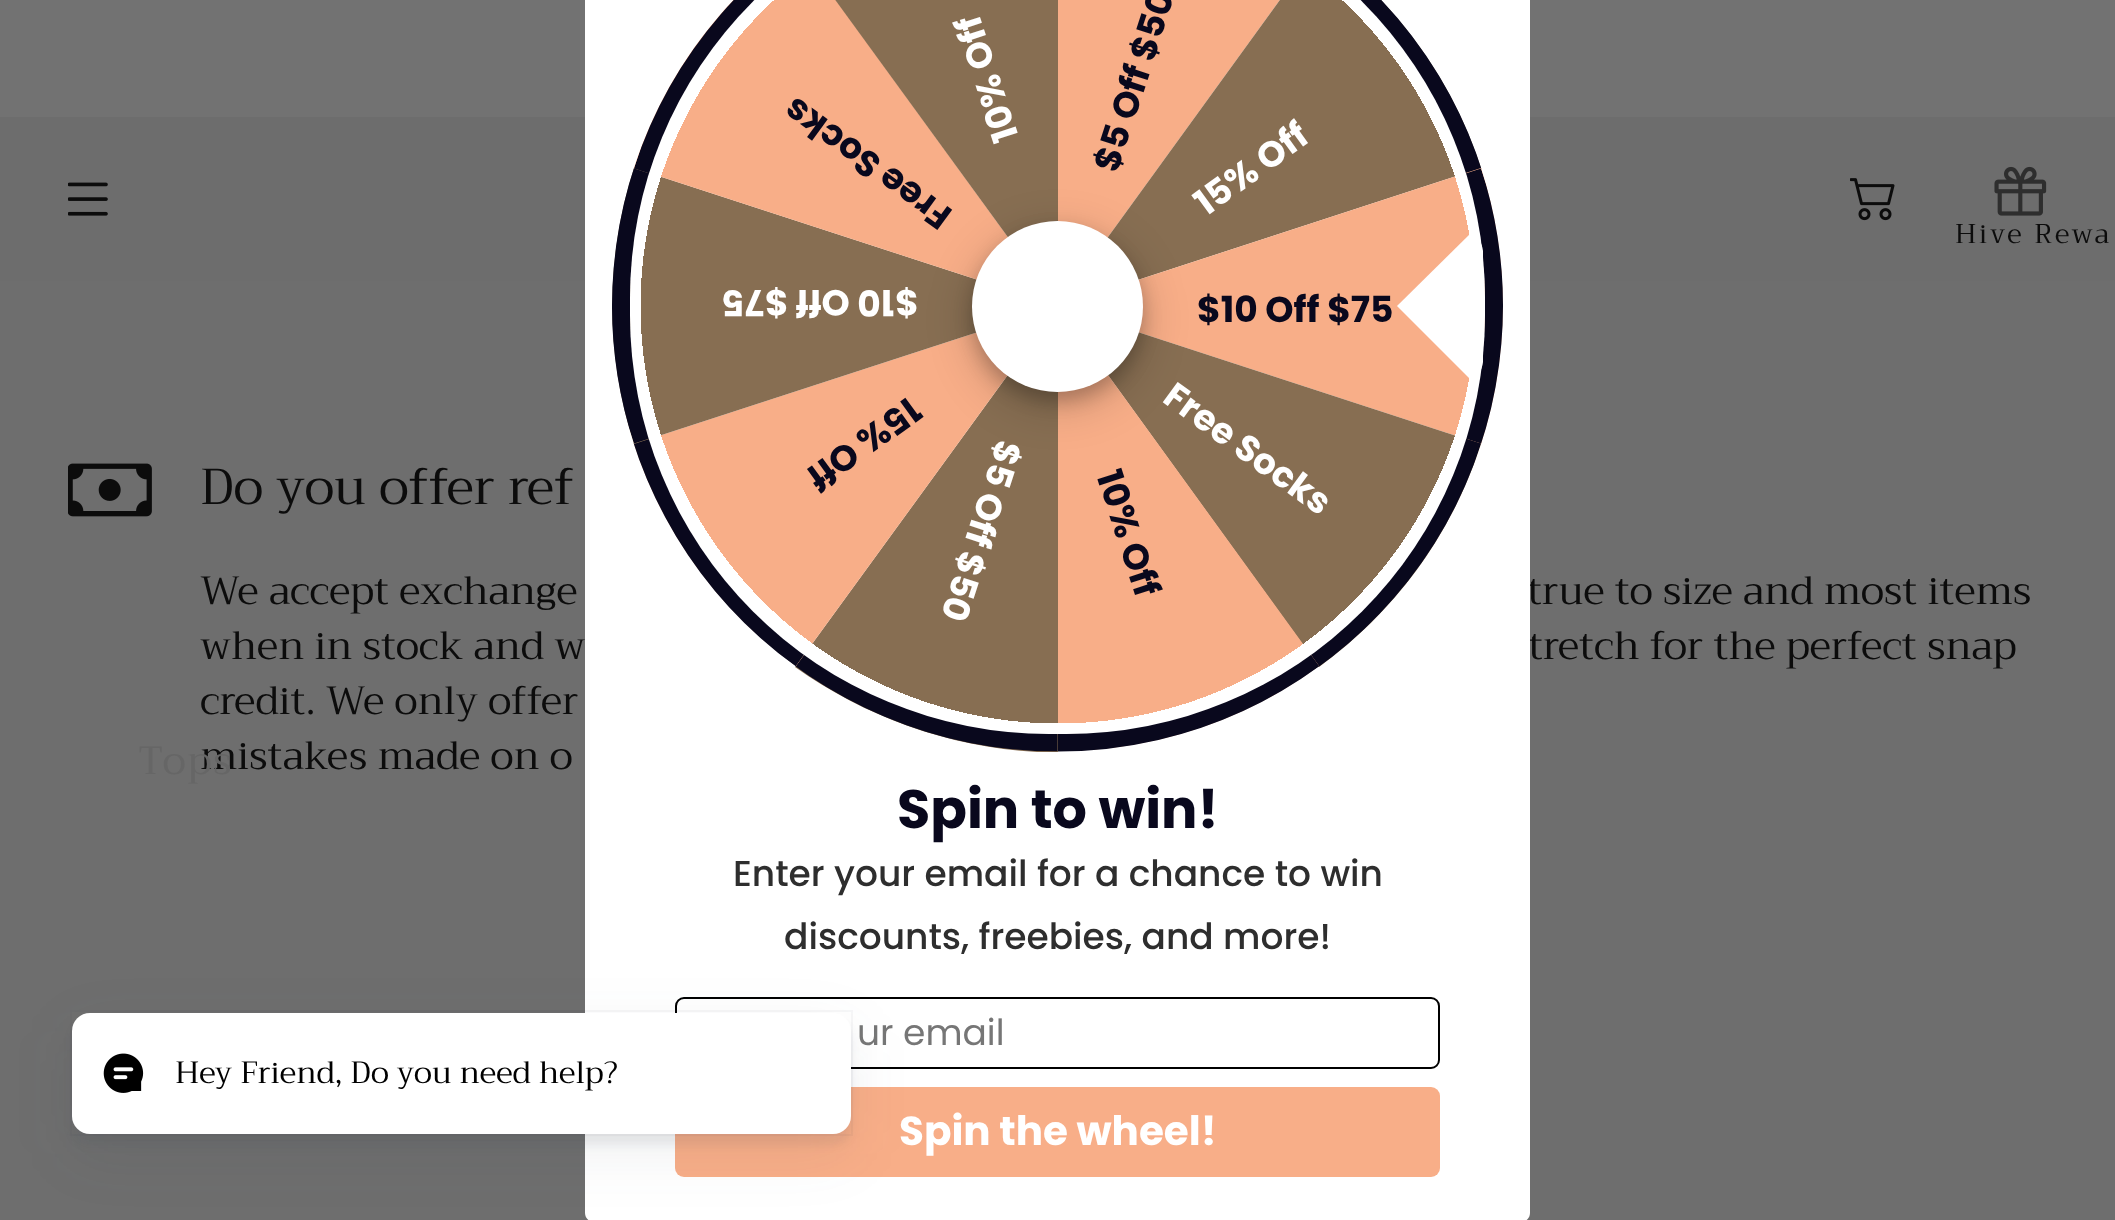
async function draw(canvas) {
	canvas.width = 2115;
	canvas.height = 1220;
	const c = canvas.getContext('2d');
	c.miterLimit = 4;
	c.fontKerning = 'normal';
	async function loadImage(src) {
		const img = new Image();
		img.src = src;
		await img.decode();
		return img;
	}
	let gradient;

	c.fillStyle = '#727272';
	c.fillRect(0, 0, 2115, 1220);
	c.fillStyle = '#6d6d6d';
	c.fillRect(0, 117, 2115, 164);
	c.fillStyle = '#6e6e6e';
	c.fillRect(0, 281, 2115, 939);
	c.font = '39.4px Trirong';
	c.fillStyle = '#0c0c0c';
	c.fillText('true to size and most items', 1527, 604);
	c.fillText('tretch for the perfect snap', 1528, 659);
	c.fillStyle = '#fff';
	c.beginPath();
	c.moveTo(585, 0);
	c.lineTo(1530, 0);
	c.lineTo(1530, 1213);
	c.bezierCurveTo(1530, 1218, 1526, 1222, 1521, 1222);
	c.lineTo(594, 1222);
	c.bezierCurveTo(589, 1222, 585, 1218, 585, 1213);
	c.closePath();
	c.fill();
	c.fillStyle = '#f8ae88';
	c.beginPath();
	c.moveTo(1058, 306);
	c.lineTo(1319, -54);
	c.bezierCurveTo(1246, -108, 1155, -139, 1058, -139);
	c.closePath();
	c.fill();
	c.font = 'bold 36px Poppins';
	c.fillStyle = '#09081d';
	c.save();
	c.translate(1117, 174);
	c.rotate(-72 * Math.PI / 180);
	c.fillText('$5 Off $50', 0, 0);
	c.restore();
	c.fillStyle = '#876e52';
	c.beginPath();
	c.moveTo(1058, 306);
	c.lineTo(1319, -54);
	c.bezierCurveTo(1398, 3, 1453, 82, 1481, 168);
	c.closePath();
	c.fill();
	c.save();
	c.beginPath();
	c.moveTo(1057.5, 306);
	c.lineTo(1319.5, -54.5);
	c.lineTo(1680, 207.5);
	c.lineTo(1481, 168.5);
	c.closePath();
	c.clip();
	c.beginPath();
	c.moveTo(1314, -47);
	c.bezierCurveTo(1509, 94.5, 1552.5, 367.5, 1410.5, 562.5);
	c.bezierCurveTo(1269, 757.5, 996, 801, 801, 659);
	c.bezierCurveTo(606, 517.5, 562.5, 244.5, 704.5, 49.5);
	c.bezierCurveTo(846, -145.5, 1119, -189, 1314, -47);
	c.closePath();
	c.strokeStyle = '#09081d';
	c.lineWidth = 18;
	c.stroke();
	c.restore();
	c.fillStyle = '#fff';
	c.save();
	c.translate(1206, 217);
	c.rotate(-36 * Math.PI / 180);
	c.fillText('15% Off', 0, 0);
	c.restore();
	c.fillStyle = '#f8ae88';
	c.beginPath();
	c.moveTo(1058, 306);
	c.lineTo(1481, 168);
	c.bezierCurveTo(1511, 261, 1509, 357, 1481, 444);
	c.closePath();
	c.fill();
	c.fillStyle = '#09081d';
	c.fillText('$10 Off $75', 1197, 322);
	c.save();
	c.beginPath();
	c.moveTo(1057.5, 306);
	c.lineTo(1481, 168.5);
	c.lineTo(1619, 592);
	c.lineTo(1481, 443.5);
	c.closePath();
	c.clip();
	c.beginPath();
	c.moveTo(1472.5, 171);
	c.bezierCurveTo(1547, 400.5, 1421.5, 646.5, 1192.5, 721);
	c.bezierCurveTo(963, 795.5, 717, 670, 642.5, 441);
	c.bezierCurveTo(568, 211.5, 693.5, -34.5, 922.5, -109);
	c.bezierCurveTo(1152, -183.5, 1398, -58, 1472.5, 171);
	c.closePath();
	c.strokeStyle = '#09081d';
	c.lineWidth = 18;
	c.stroke();
	c.restore();
	c.fillStyle = '#876e52';
	c.beginPath();
	c.moveTo(1481, 444);
	c.lineTo(1058, 306);
	c.lineTo(1319, 667);
	c.bezierCurveTo(1393, 613, 1451, 537, 1481, 444);
	c.closePath();
	c.fill();
	c.save();
	c.beginPath();
	c.moveTo(1057.5, 306);
	c.lineTo(1481, 443.5);
	c.lineTo(1343.5, 867.5);
	c.lineTo(1319.5, 666.5);
	c.closePath();
	c.clip();
	c.beginPath();
	c.moveTo(1472.5, 441);
	c.bezierCurveTo(1398, 670, 1152, 795.5, 922.5, 721);
	c.bezierCurveTo(693.5, 646.5, 568, 400.5, 642.5, 171);
	c.bezierCurveTo(717, -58, 963, -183.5, 1192.5, -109);
	c.bezierCurveTo(1421.5, -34.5, 1547, 211.5, 1472.5, 441);
	c.closePath();
	c.strokeStyle = '#09081d';
	c.lineWidth = 18;
	c.stroke();
	c.restore();
	c.fillStyle = '#fff';
	c.save();
	c.translate(1161, 401);
	c.rotate(36 * Math.PI / 180);
	c.fillText('Free Socks', 0, 0);
	c.restore();
	c.fillStyle = '#f8ae88';
	c.beginPath();
	c.moveTo(1319, 666);
	c.lineTo(1058, 306);
	c.lineTo(1057, 751);
	c.bezierCurveTo(1148, 751, 1240, 724, 1319, 666);
	c.closePath();
	c.fill();
	c.save();
	c.beginPath();
	c.moveTo(1057.5, 306);
	c.lineTo(1319.5, 666.5);
	c.lineTo(959, 928.5);
	c.lineTo(1057.5, 751.5);
	c.closePath();
	c.clip();
	c.beginPath();
	c.moveTo(1314, 659);
	c.bezierCurveTo(1119, 801, 846, 757.5, 704.5, 562.5);
	c.bezierCurveTo(562.5, 367.5, 606, 94.5, 801, -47);
	c.bezierCurveTo(996, -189, 1269, -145.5, 1410.5, 49.5);
	c.bezierCurveTo(1552.5, 244.5, 1509, 517.5, 1314, 659);
	c.closePath();
	c.strokeStyle = '#09081d';
	c.lineWidth = 18;
	c.stroke();
	c.restore();
	c.fillStyle = '#876e52';
	c.beginPath();
	c.moveTo(1058, 306);
	c.lineTo(1058, 752);
	c.lineTo(1037, 752);
	c.bezierCurveTo(947, 747, 864, 716, 795, 667);
	c.lineTo(796, 666);
	c.closePath();
	c.fill();
	c.save();
	c.beginPath();
	c.moveTo(1057.5, 306);
	c.lineTo(1057.5, 751.5);
	c.lineTo(612, 751.5);
	c.lineTo(795.5, 666.5);
	c.closePath();
	c.clip();
	c.beginPath();
	c.moveTo(1057.5, 742.5);
	c.bezierCurveTo(816.5, 742.5, 621, 547, 621, 306);
	c.bezierCurveTo(621, 65, 816.5, -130.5, 1057.5, -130.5);
	c.bezierCurveTo(1298.5, -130.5, 1494, 65, 1494, 306);
	c.bezierCurveTo(1494, 547, 1298.5, 742.5, 1057.5, 742.5);
	c.closePath();
	c.strokeStyle = '#09081d';
	c.lineWidth = 18;
	c.stroke();
	c.restore();
	c.fillStyle = '#fff';
	c.save();
	c.translate(998, 438);
	c.rotate(108 * Math.PI / 180);
	c.fillText('$5 Off $50', 0, 0);
	c.restore();
	c.fillStyle = '#f8ae88';
	c.beginPath();
	c.moveTo(1058, 306);
	c.lineTo(796, 666);
	c.bezierCurveTo(717, 609, 662, 530, 634, 444);
	c.closePath();
	c.fill();
	c.save();
	c.beginPath();
	c.moveTo(1057.5, 306);
	c.lineTo(795.5, 666.5);
	c.lineTo(435, 404.5);
	c.lineTo(634, 443.5);
	c.closePath();
	c.clip();
	c.beginPath();
	c.moveTo(801, 659);
	c.bezierCurveTo(606, 517.5, 562.5, 244.5, 704.5, 49.5);
	c.bezierCurveTo(846, -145.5, 1119, -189, 1314, -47);
	c.bezierCurveTo(1509, 94.5, 1552.5, 367.5, 1410.5, 562.5);
	c.bezierCurveTo(1269, 757.5, 996, 801, 801, 659);
	c.closePath();
	c.strokeStyle = '#09081d';
	c.lineWidth = 18;
	c.stroke();
	c.restore();
	c.fillStyle = '#09081d';
	c.save();
	c.translate(909, 395);
	c.rotate(144 * Math.PI / 180);
	c.fillText('15% Off', 0, 0);
	c.restore();
	c.fillStyle = '#876e52';
	c.beginPath();
	c.moveTo(1058, 306);
	c.lineTo(634, 444);
	c.bezierCurveTo(604, 351, 606, 255, 634, 168);
	c.closePath();
	c.fill();
	c.save();
	c.beginPath();
	c.moveTo(1057.5, 306);
	c.lineTo(634, 443.5);
	c.lineTo(496, 20);
	c.lineTo(634, 168.5);
	c.closePath();
	c.clip();
	c.beginPath();
	c.moveTo(642.5, 441);
	c.bezierCurveTo(568, 211.5, 693.5, -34.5, 922.5, -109);
	c.bezierCurveTo(1152, -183.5, 1398, -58, 1472.5, 171);
	c.bezierCurveTo(1547, 400.5, 1421.5, 646.5, 1192.5, 721);
	c.bezierCurveTo(963, 795.5, 717, 670, 642.5, 441);
	c.closePath();
	c.strokeStyle = '#09081d';
	c.lineWidth = 18;
	c.stroke();
	c.restore();
	c.fillStyle = '#fff';
	c.save();
	c.translate(918, 290);
	c.rotate(180 * Math.PI / 180);
	c.fillText('$10 Off $75', 0, 0);
	c.restore();
	c.fillStyle = '#f8ae88';
	c.beginPath();
	c.moveTo(634, 168);
	c.lineTo(1058, 306);
	c.lineTo(796, -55);
	c.bezierCurveTo(722, -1, 664, 75, 634, 168);
	c.closePath();
	c.fill();
	c.fillStyle = '#09081d';
	c.save();
	c.translate(954, 211);
	c.rotate(-144 * Math.PI / 180);
	c.fillText('Free Socks', 0, 0);
	c.restore();
	c.fillStyle = '#876e52';
	c.beginPath();
	c.moveTo(796, -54);
	c.lineTo(1058, 306);
	c.lineTo(1058, -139);
	c.bezierCurveTo(967, -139, 875, -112, 796, -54);
	c.closePath();
	c.fill();
	c.fillStyle = '#fff';
	c.save();
	c.translate(1019, 137);
	c.rotate(-108 * Math.PI / 180);
	c.fillText('10% Off', 0, 0);
	c.restore();
	c.save();
	c.beginPath();
	c.moveTo(1057.5, 306);
	c.lineTo(634, 168.5);
	c.lineTo(771.5, -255.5);
	c.lineTo(795.5, -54.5);
	c.closePath();
	c.clip();
	c.beginPath();
	c.moveTo(642.5, 171);
	c.bezierCurveTo(717, -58, 963, -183.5, 1192.5, -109);
	c.bezierCurveTo(1421.5, -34.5, 1547, 211.5, 1472.5, 441);
	c.bezierCurveTo(1398, 670, 1152, 795.5, 922.5, 721);
	c.bezierCurveTo(693.5, 646.5, 568, 400.5, 642.5, 171);
	c.closePath();
	c.strokeStyle = '#09081d';
	c.lineWidth = 18;
	c.stroke();
	c.restore();
	c.fillStyle = '#09081d';
	c.save();
	c.translate(1096, 475);
	c.rotate(72 * Math.PI / 180);
	c.fillText('10% Off', 0, 0);
	c.restore();
	c.fillStyle = '#00000033';
	c.filter = 'blur(22.5px)';
	c.beginPath();
	c.roundRect(972, 234, 171, 171, 85.5);
	c.fill();
	c.filter = 'none';
	c.filter = 'blur(9px)';
	c.beginPath();
	c.roundRect(972, 230, 171, 171, 85.5);
	c.fill();
	c.filter = 'none';
	c.fillStyle = '#fff';
	c.beginPath();
	c.arc(1057.5, 306.5, 85.5, 0, 2 * Math.PI);
	c.fill();
	c.beginPath();
	c.moveTo(1483, 251);
	c.bezierCurveTo(1482, 243, 1478, 236, 1473, 231);
	c.lineTo(1397, 306);
	c.lineTo(1473, 382);
	c.bezierCurveTo(1478, 377, 1482, 370, 1483, 362);
	c.closePath();
	c.fill();
	gradient = c.createRadialGradient(1058, 306, 0, 1058, 306, 605);
	gradient.addColorStop(0.69, '#ffffff00');
	gradient.addColorStop(0.69, '#fff');
	c.fillStyle = gradient;
	c.beginPath();
	c.roundRect(630, -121, 855, 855, 419);
	c.fill();
	c.font = 'bold 54px Poppins';
	c.fillStyle = '#09081d';
	c.fillText('Spin to win!', 897, 828);
	c.font = '500 36px Poppins';
	c.fillStyle = '#2e2e2e';
	c.fillText('Enter your email for a chance to win', 733, 886);
	c.fillText('discounts, freebies, and more!', 784, 949);
	c.beginPath();
	c.roundRect(676, 998, 763, 70, 8);
	c.strokeStyle = '#000';
	c.lineWidth = 2;
	c.stroke();
	c.font = '36px Poppins';
	c.fillStyle = '#767676';
	c.fillText('ur email', 857, 1045);
	c.fillStyle = '#f8ae88';
	c.beginPath();
	c.roundRect(675, 1087, 765, 90, 9);
	c.fill();
	c.font = 'bold 40.5px "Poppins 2"';
	c.fillStyle = '#fff';
	c.fillText('Spin the wheel!', 899, 1145);
	c.drawImage(await loadImage('img1.png'), 1850, 178, 45, 43);
	c.drawImage(await loadImage('img2.png'), 1994, 166, 53, 50);
	c.letterSpacing = '2.75px';
	c.font = '27px Trirong';
	c.fillStyle = '#0c0c0c';
	c.fillText('Hive Rewa', 1955, 243);
	c.drawImage(await loadImage('img3.png'), 68, 182, 40, 34);
	c.letterSpacing = '0px';
	c.font = '39.4px Trirong';
	c.fillText('mistakes made on o', 200, 769);
	c.letterSpacing = '2px';
	c.fillStyle = '#666';
	c.fillText('Tops', 138, 774);
	c.drawImage(await loadImage('img4.png'), 68, 463, 84, 54);
	c.letterSpacing = '0px';
	c.font = '50.5px Trirong';
	c.fillStyle = '#0c0c0c';
	c.fillText('Do you offer ref', 200, 504);
	c.font = '39.4px Trirong';
	for (const [text, x, y] of [
		['We accept exchange', 200, 604],
		['when in stock and w', 200, 659],
		['credit. We only offer', 200, 714],
	]) {
		c.fillText(text, x, y);
	}
	c.fillStyle = '#373f4714';
	c.filter = 'blur(28.5px)';
	c.beginPath();
	c.roundRect(72, 1031, 779, 123, 18);
	c.fill();
	c.filter = 'none';
	c.filter = 'blur(4.5px)';
	c.beginPath();
	c.roundRect(72, 1022, 779, 123, 18);
	c.fill();
	c.filter = 'none';
	c.strokeStyle = '#373f470a';
	c.strokeRect(71, 1011, 781, 124);
	c.fillStyle = '#fff';
	c.beginPath();
	c.roundRect(72, 1013, 779, 121, 18);
	c.fill();
	c.drawImage(await loadImage('img5.png'), 103, 1053, 41, 40);
	c.font = '30.75px Trirong';
	c.fillStyle = '#000';
	c.fillText('Hey Friend, Do you need help?', 175, 1083);
}

draw(document.querySelector('canvas'));
